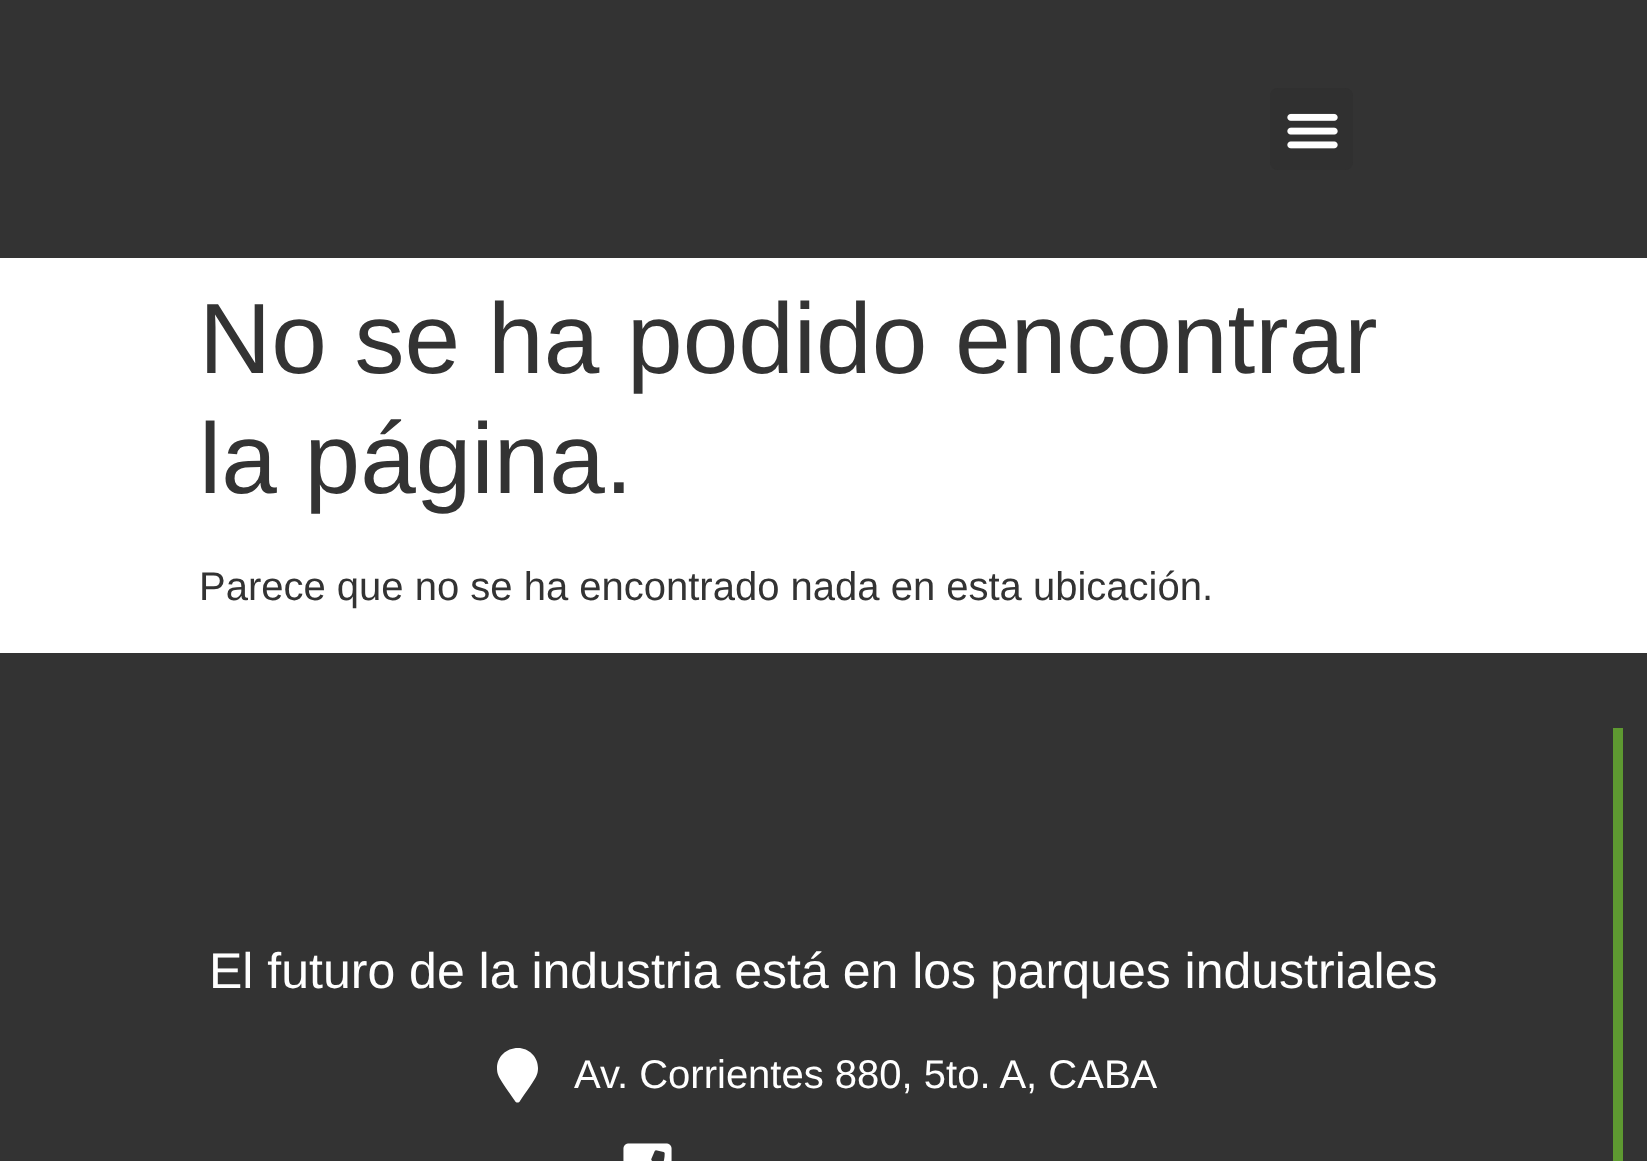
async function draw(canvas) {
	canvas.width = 1647;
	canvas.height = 1161;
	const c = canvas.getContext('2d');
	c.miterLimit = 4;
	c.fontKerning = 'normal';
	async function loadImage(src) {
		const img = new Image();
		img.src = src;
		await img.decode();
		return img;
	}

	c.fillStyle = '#fff';
	c.fillRect(0, 0, 1647, 1161);
	c.fillStyle = '#333';
	c.fillRect(0, 0, 1647, 258);
	c.fillStyle = '#303030';
	c.beginPath();
	c.roundRect(1270, 88, 83, 82, 8);
	c.fill();
	c.drawImage(await loadImage('img1.png'), 1287, 113, 51, 36);
	c.font = '100px Liberation Sans';
	c.fillStyle = '#333';
	c.fillText('No se ha podido encontrar', 199, 373);
	c.fillText('la página.', 199, 493);
	c.font = '40px Liberation Sans';
	c.fillText('Parece que no se ha encontrado nada en esta ubicación.', 199, 600);
	c.fillRect(0, 653, 1647, 508);
	c.font = '50px Liberation Sans';
	c.fillStyle = '#fff';
	c.fillText('El futuro de la industria está en los parques industriales', 209, 988);
	c.fillStyle = '#5e9931';
	c.fillRect(1613, 728, 10, 433);
	c.fillStyle = '#fff';
	c.beginPath();
	c.moveTo(515, 1101);
	c.bezierCurveTo(500, 1079, 497, 1076, 497, 1068);
	c.bezierCurveTo(497, 1057, 506, 1048, 518, 1048);
	c.bezierCurveTo(529, 1048, 538, 1057, 538, 1068);
	c.bezierCurveTo(538, 1076, 535, 1079, 520, 1101);
	c.bezierCurveTo(519, 1103, 516, 1103, 515, 1101);
	c.closePath();
	c.fill();
	c.font = '40px Liberation Sans';
	c.fillText('Av. Corrientes 880, 5to. A, CABA', 574, 1088);
	c.drawImage(await loadImage('img2.png'), 623, 1143, 49, 18);
}

draw(document.querySelector('canvas'));
